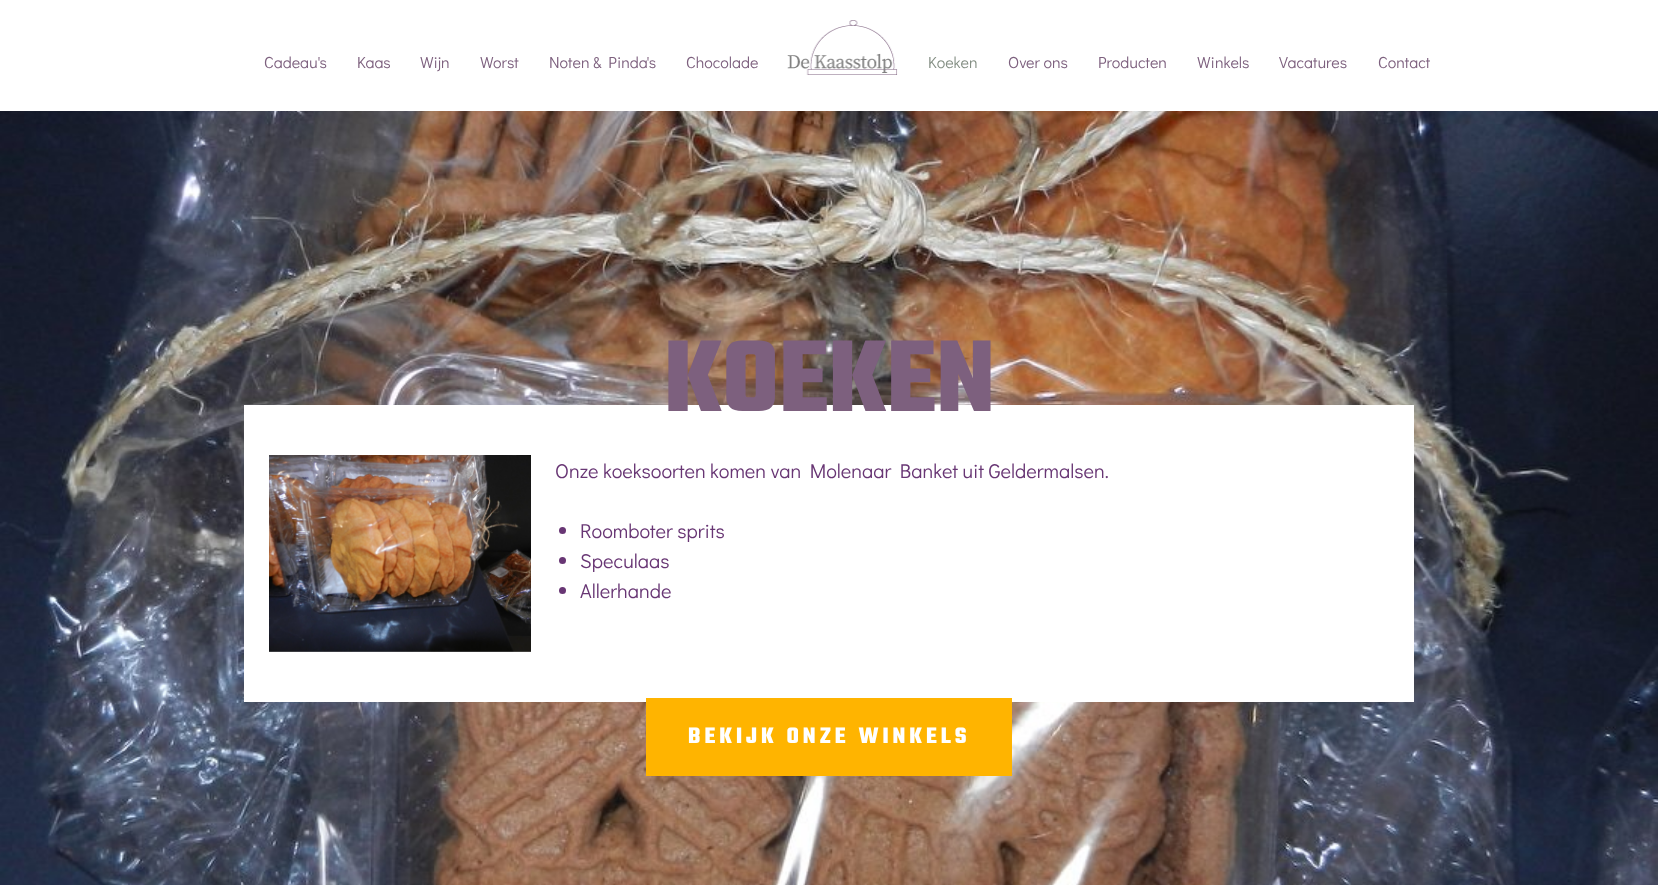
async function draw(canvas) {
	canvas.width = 1658;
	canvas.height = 885;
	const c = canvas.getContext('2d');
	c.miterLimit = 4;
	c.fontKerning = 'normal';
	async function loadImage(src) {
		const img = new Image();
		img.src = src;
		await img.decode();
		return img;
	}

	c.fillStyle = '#fff';
	c.fillRect(0, 0, 1658, 885);
	c.font = '16px Didact Gothic';
	c.fillStyle = '#7d607e';
	for (const [text, x, y] of [
		['Cadeau\'s', 264, 68],
		['Kaas', 357, 68],
		['Wijn', 420, 68],
		['Worst', 480, 68],
		['Noten & Pinda\'s', 549, 68],
		['Chocolade', 686, 68],
	]) {
		c.fillText(text, x, y);
	}
	c.drawImage(await loadImage('img1.png'), 787, 20, 111, 55);
	c.fillStyle = '#838e83';
	c.fillText('Koeken', 928, 68);
	c.fillStyle = '#7d607e';
	for (const [text, x, y] of [
		['Over ons', 1008, 68],
		['Producten', 1098, 68],
		['Winkels', 1197, 68],
		['Vacatures', 1279, 68],
		['Contact', 1378, 68],
	]) {
		c.fillText(text, x, y);
	}
	c.drawImage(await loadImage('img2.png'), 0, 111, 1658, 774);
	c.fillStyle = '#fff';
	c.fillRect(244, 405, 1170, 297);
	c.font = 'bold 110px Teko';
	c.fillStyle = '#7d607e';
	c.fillText('KOEKEN', 664, 411);
	c.drawImage(await loadImage('img3.png'), 269, 455, 262, 197);
	c.font = '20px Didact Gothic';
	c.fillStyle = '#683674';
	c.fillText('Onze koeksoorten komen van Molenaar Banket uit Geldermalsen.', 555, 478);
	c.beginPath();
	c.arc(562.5, 530.5, 3.5, 0, 2 * Math.PI);
	c.fill();
	c.fillText('Roomboter sprits', 580, 538);
	c.beginPath();
	c.arc(562.5, 560.5, 3.5, 0, 2 * Math.PI);
	c.fill();
	c.fillText('Speculaas', 580, 568);
	c.beginPath();
	c.arc(562.5, 590.5, 3.5, 0, 2 * Math.PI);
	c.fill();
	c.fillText('Allerhande', 580, 598);
	c.fillStyle = '#ffb400';
	c.fillRect(646, 698, 366, 78);
	c.letterSpacing = '4px';
	c.font = 'bold 24px Teko';
	c.fillStyle = '#fff';
	c.fillText('BEKIJK ONZE WINKELS', 688, 743);
}

draw(document.querySelector('canvas'));
